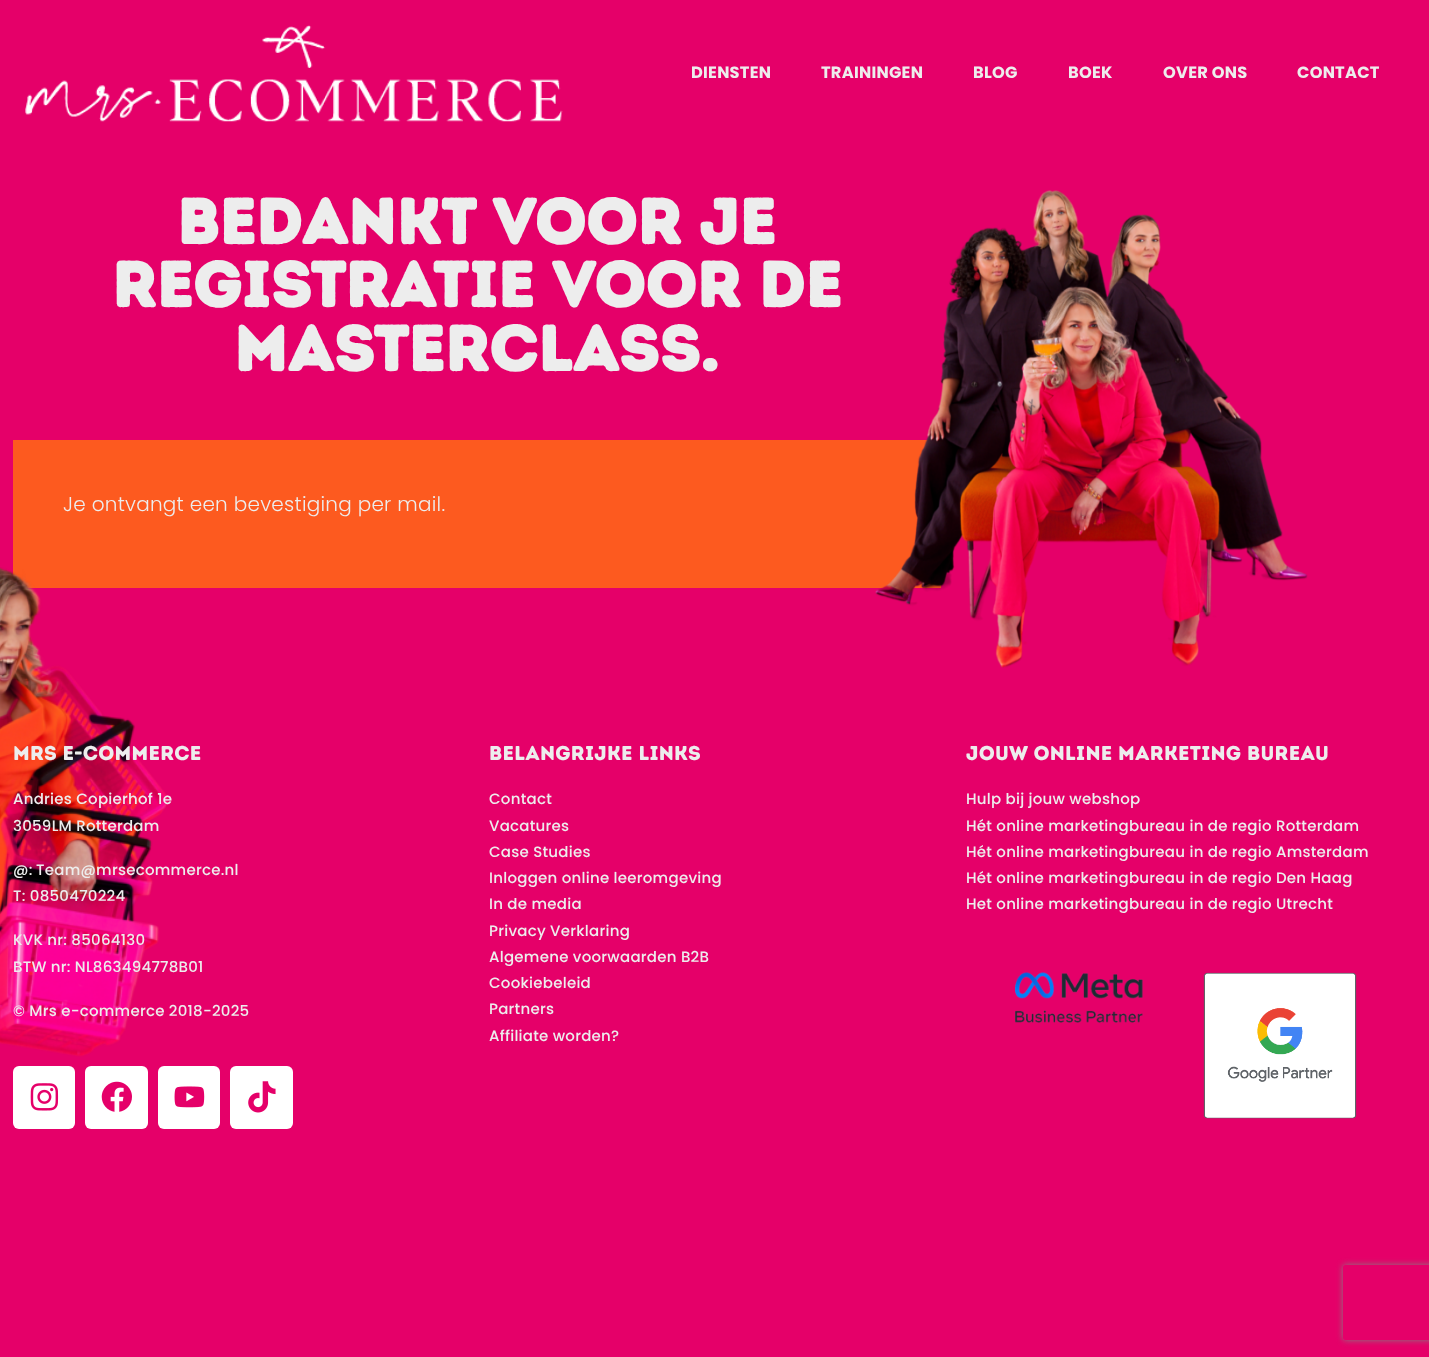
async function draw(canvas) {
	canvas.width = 1429;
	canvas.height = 1357;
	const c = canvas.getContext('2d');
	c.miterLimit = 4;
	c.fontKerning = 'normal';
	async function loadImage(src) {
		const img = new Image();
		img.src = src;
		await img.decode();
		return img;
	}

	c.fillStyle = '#e50069';
	c.fillRect(0, 0, 1429, 1357);
	c.drawImage(await loadImage('img1.png'), 25, 25, 538, 97);
	c.letterSpacing = '0.25px';
	c.font = 'bold 16.25px Poppins';
	c.fillStyle = '#ededed';
	for (const [text, x, y] of [
		['DIENSTEN', 691, 78],
		['TRAININGEN', 821, 78],
		['BLOG', 973, 78],
		['BOEK', 1068, 78],
		['OVER ONS', 1163, 78],
		['CONTACT', 1297, 78],
	]) {
		c.fillText(text, x, y);
	}
	c.font = 'bold 63.75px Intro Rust';
	for (const [text, x, y] of [
		['BEDANKT VOOR JE', 177, 244],
		['REGISTRATIE VOOR DE', 112, 307],
		['MASTERCLASS.', 234, 371],
	]) {
		c.fillText(text, x, y);
	}
	c.fillStyle = '#fd5a1f';
	c.fillRect(13, 440, 928, 148);
	c.font = '300 20px Poppins';
	c.fillStyle = '#ededed';
	c.fillText('Je ontvangt een bevestiging per mail.', 63, 511);
	c.drawImage(await loadImage('img2.png'), 0, 567, 168, 490);
	c.drawImage(await loadImage('img3.png'), 875, 190, 433, 478);
	c.font = '20px Intro Rust';
	c.fillText('MRS E-COMMERCE', 13, 760);
	c.font = '500 15px Poppins';
	for (const [text, x, y] of [
		['Andries Copierhof 1e', 13, 804],
		['3059LM Rotterdam', 13, 831],
		['@:', 13, 875],
		['Team@mrsecommerce.nl', 36, 875],
		['T: 0850470224', 13, 901],
		['KVK nr: 85064130', 13, 945],
		['BTW nr: NL863494778B01', 13, 972],
		['© Mrs e-commerce 2018-2025', 13, 1016],
	]) {
		c.fillText(text, x, y);
	}
	c.fillStyle = '#fff';
	c.beginPath();
	c.roundRect(13, 1066, 62, 63, 6);
	c.fill();
	c.drawImage(await loadImage('img4.png'), 30, 1083, 29, 28);
	c.beginPath();
	c.roundRect(85, 1066, 63, 63, 6);
	c.fill();
	c.drawImage(await loadImage('img5.png'), 101, 1081, 31, 31);
	c.beginPath();
	c.roundRect(158, 1066, 62, 63, 6);
	c.fill();
	c.drawImage(await loadImage('img6.png'), 174, 1086, 31, 22);
	c.beginPath();
	c.roundRect(230, 1066, 63, 63, 6);
	c.fill();
	c.drawImage(await loadImage('img7.png'), 248, 1081, 28, 32);
	c.font = '20px Intro Rust';
	c.fillStyle = '#ededed';
	c.fillText('Belangrijke links', 489, 760);
	c.font = '500 15px Poppins';
	for (const [text, x, y] of [
		['Contact', 489, 804],
		['Vacatures', 489, 831],
		['Case Studies', 489, 857],
		['Inloggen online leeromgeving', 489, 883],
		['In de media', 489, 909],
		['Privacy Verklaring', 489, 936],
		['Algemene voorwaarden B2B', 489, 962],
		['Cookiebeleid', 489, 988],
		['Partners', 489, 1014],
		['Affiliate worden?', 489, 1041],
	]) {
		c.fillText(text, x, y);
	}
	c.font = '20px Intro Rust';
	c.fillText('Jouw online marketing bureau', 966, 760);
	c.font = '500 15px Poppins';
	for (const [text, x, y] of [
		['Hulp bij jouw webshop', 966, 804],
		['Hét online marketingbureau in de regio Rotterdam', 966, 831],
		['Hét online marketingbureau in de regio Amsterdam', 966, 857],
		['Hét online marketingbureau in de regio Den Haag', 966, 883],
		['Het online marketingbureau in de regio Utrecht', 966, 909],
	]) {
		c.fillText(text, x, y);
	}
	c.drawImage(await loadImage('img8.png'), 1015, 972, 128, 51);
	c.drawImage(await loadImage('img9.png'), 1203, 972, 154, 147);
	c.save();
	c.beginPath();
	c.moveTo(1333, 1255);
	c.lineTo(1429, 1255);
	c.lineTo(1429, 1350);
	c.lineTo(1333, 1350);
	c.closePath();
	c.moveTo(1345.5, 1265);
	c.lineTo(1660.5, 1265);
	c.bezierCurveTo(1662, 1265, 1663, 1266, 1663, 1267.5);
	c.lineTo(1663, 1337.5);
	c.bezierCurveTo(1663, 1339, 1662, 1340, 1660.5, 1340);
	c.lineTo(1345.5, 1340);
	c.bezierCurveTo(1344, 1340, 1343, 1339, 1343, 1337.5);
	c.lineTo(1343, 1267.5);
	c.bezierCurveTo(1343, 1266, 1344, 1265, 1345.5, 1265);
	c.closePath();
	c.clip('evenodd');
	c.fillStyle = '#808080';
	c.filter = 'blur(3px)';
	c.beginPath();
	c.roundRect(1343, 1265, 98, 75, 2.5);
	c.fill();
	c.filter = 'none';
	c.restore();
}

draw(document.querySelector('canvas'));
